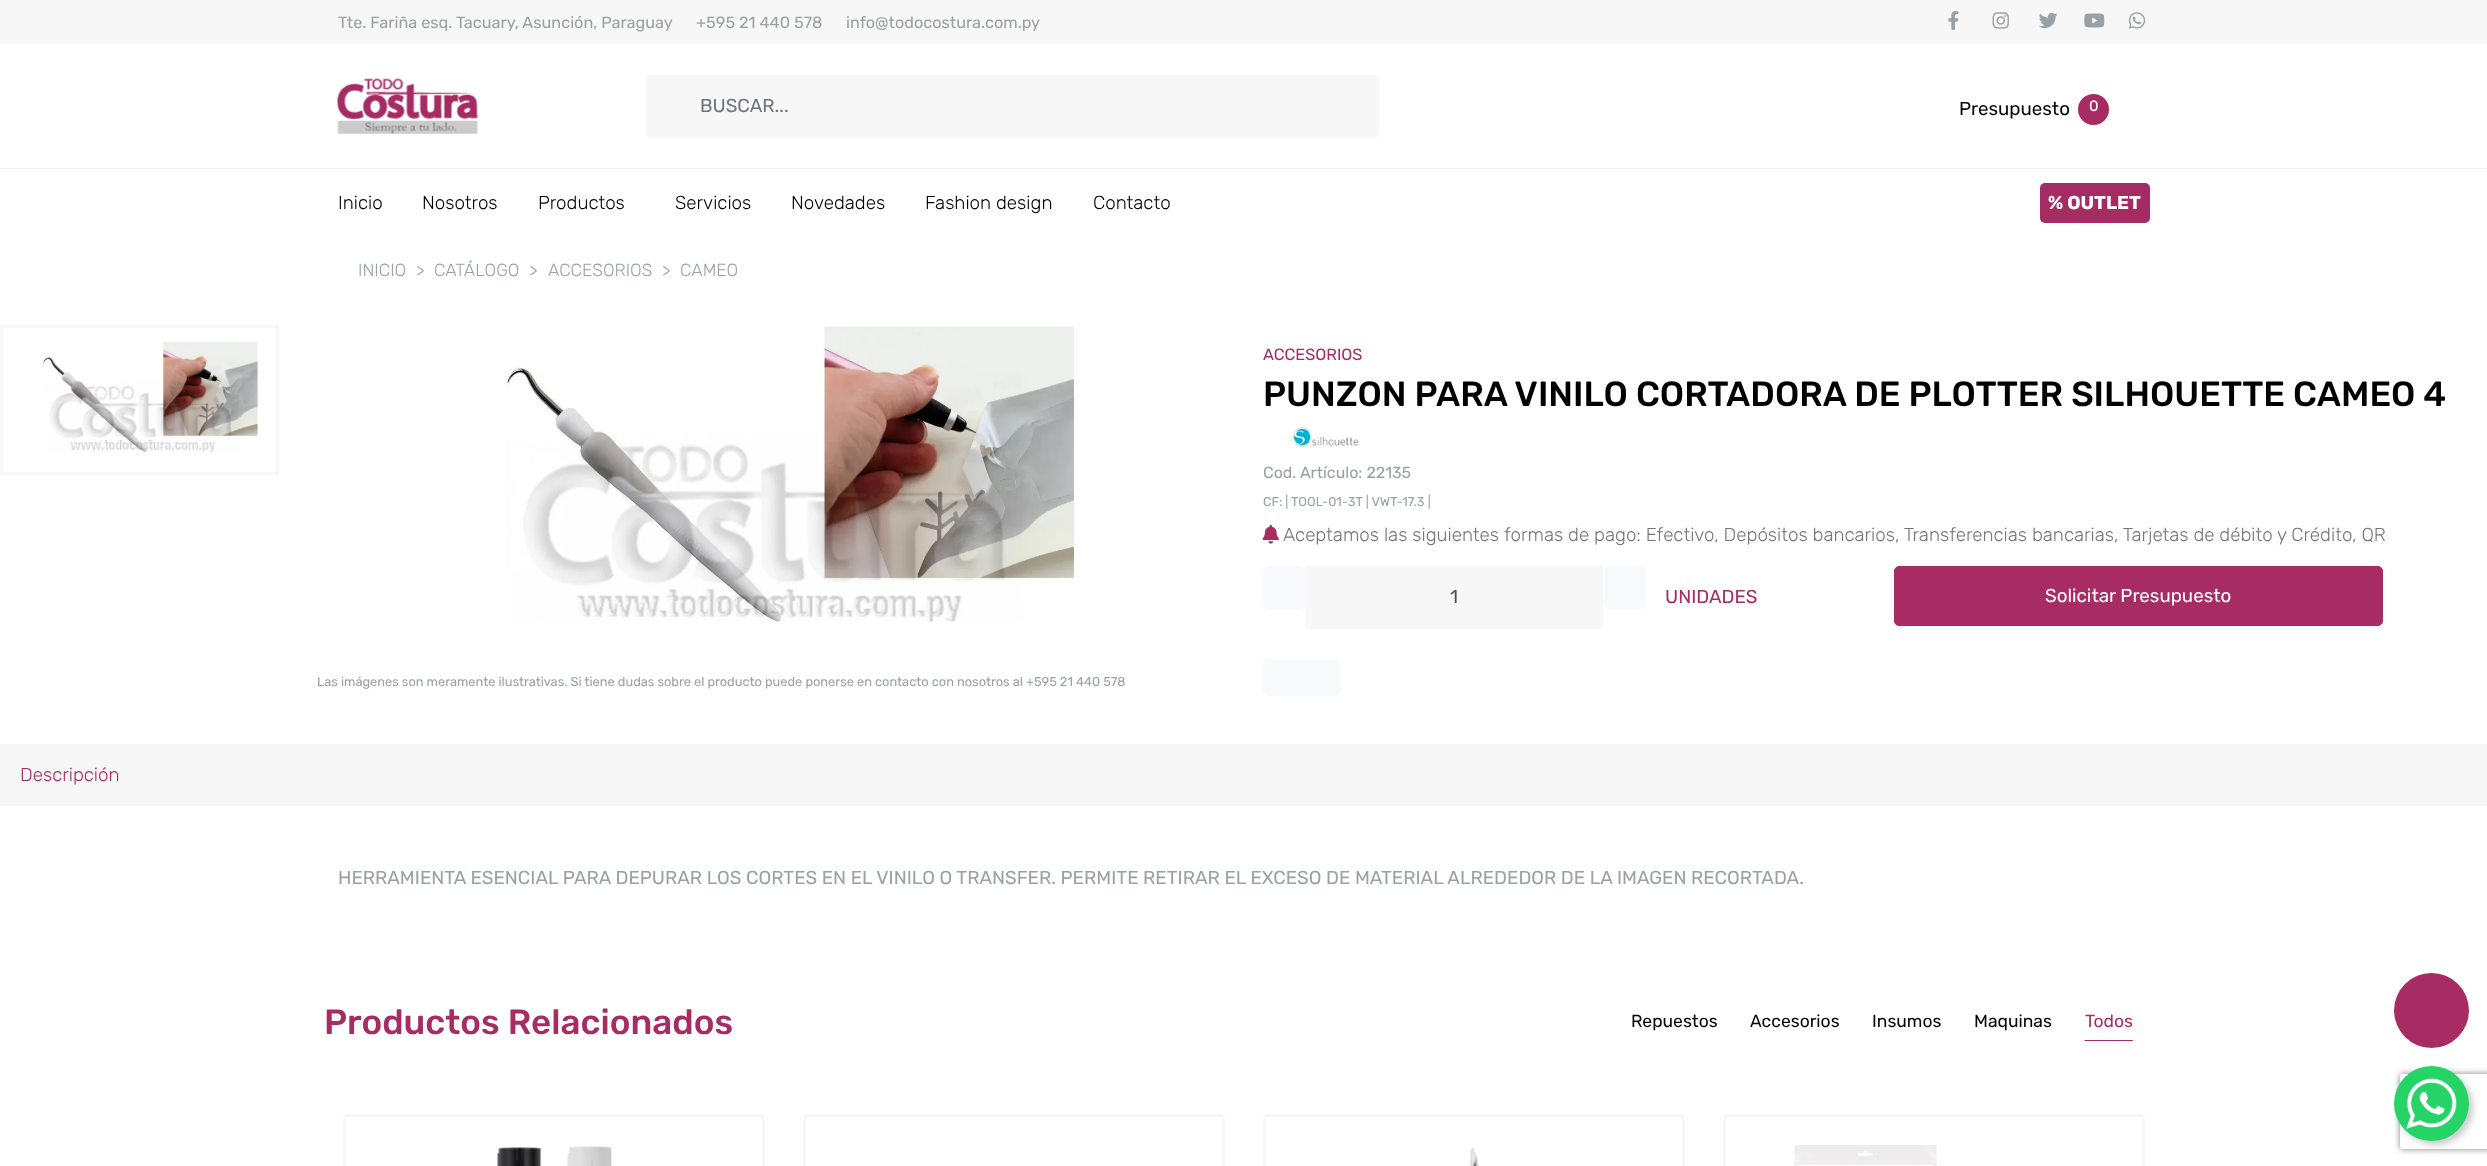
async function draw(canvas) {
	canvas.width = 2487;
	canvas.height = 1166;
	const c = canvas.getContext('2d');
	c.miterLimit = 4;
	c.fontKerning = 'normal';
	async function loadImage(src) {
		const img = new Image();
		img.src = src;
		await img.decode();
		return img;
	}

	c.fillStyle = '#fff';
	c.fillRect(0, 0, 2487, 1166);
	c.fillStyle = '#f7f7f7';
	c.fillRect(0, 0, 2487, 44);
	c.font = '16.25px Rubik';
	c.fillStyle = '#99a1a6';
	for (const [text, x, y] of [
		['Tte. Fariña esq. Tacuary, Asunción, Paraguay', 338, 28],
		['+595 21 440 578', 696, 28],
		['info@todocostura.com.py', 846, 28],
	]) {
		c.fillText(text, x, y);
	}
	c.drawImage(await loadImage('img1.png'), 1948, 11, 11, 19);
	c.drawImage(await loadImage('img2.png'), 1992, 12, 17, 17);
	c.drawImage(await loadImage('img3.png'), 2039, 12, 19, 17);
	c.drawImage(await loadImage('img4.png'), 2084, 13, 21, 15);
	c.drawImage(await loadImage('img5.png'), 2128, 12, 18, 17);
	c.drawImage(await loadImage('img6.png'), 337, 78, 141, 56);
	c.fillStyle = '#f7f7f7';
	c.beginPath();
	c.roundRect(646, 75, 30, 63, [5, 0, 0, 5]);
	c.fill();
	c.beginPath();
	c.roundRect(675, 75, 704, 63, [0, 5, 5, 0]);
	c.fill();
	c.font = '18.75px Rubik';
	c.fillStyle = '#6c757d';
	c.fillText('BUSCAR...', 700, 112);
	c.fillStyle = '#080708';
	c.fillText('Presupuesto', 1959, 115);
	c.fillStyle = '#a62c63';
	c.beginPath();
	c.arc(2093.5, 109.5, 15.5, 0, 2 * Math.PI);
	c.fill();
	c.font = '15px Rubik';
	c.fillStyle = '#fff';
	c.fillText('0', 2089, 111);
	c.fillStyle = '#f0f0f0';
	c.fillRect(0, 168, 2487, 1);
	c.font = '300 18.75px Rubik';
	c.fillStyle = '#000';
	for (const [text, x, y] of [
		['Inicio', 338, 209],
		['Nosotros', 422, 209],
		['Productos', 538, 209],
		['Servicios', 675, 209],
		['Novedades', 791, 209],
		['Fashion design', 925, 209],
		['Contacto', 1093, 209],
	]) {
		c.fillText(text, x, y);
	}
	c.fillStyle = '#a52b63';
	c.beginPath();
	c.roundRect(2040, 183, 110, 40, 5);
	c.fill();
	c.font = 'bold 18.75px Rubik';
	c.fillStyle = '#fff';
	c.fillText('% OUTLET', 2048, 209);
	c.font = '300 17.5px Rubik';
	c.fillStyle = '#99a1a6';
	for (const [text, x, y] of [
		['INICIO', 358, 276],
		['>', 416, 276],
		['CATÁLOGO', 434, 276],
		['>', 529, 276],
		['ACCESORIOS', 548, 276],
		['>', 662, 276],
		['CAMEO', 680, 276],
	]) {
		c.fillText(text, x, y);
	}
	c.font = '16.25px Rubik';
	c.fillStyle = '#a62c63';
	c.fillText('ACCESORIOS', 1263, 360);
	c.font = '500 35px Rubik';
	c.fillStyle = '#000';
	c.fillText('PUNZON PARA VINILO CORTADORA DE PLOTTER SILHOUETTE CAMEO 4', 1263, 406);
	c.drawImage(await loadImage('img7.png'), 1292, 427, 67, 20);
	c.font = '16px Rubik';
	c.fillStyle = '#99a1a6';
	c.fillText('Cod. Artículo: 22135', 1263, 478);
	c.font = '12.8px Rubik';
	c.fillText('CF: | TOOL-01-3T | VWT-17.3 |', 1263, 506);
	c.drawImage(await loadImage('img8.png'), 1262, 524, 17, 20);
	c.font = '300 18.75px Rubik';
	c.fillStyle = '#757575';
	c.fillText('Aceptamos las siguientes', 1283, 541);
	c.fillText('formas de pago: Efectivo, Depósitos bancarios, Transferencias bancarias, Tarjetas de débito y Crédito, QR', 1504, 541);
	c.fillStyle = '#f8f9fa';
	c.beginPath();
	c.roundRect(1263, 566, 42, 43, 5);
	c.fill();
	c.fillStyle = '#f7f7f7';
	c.fillRect(1306, 566, 297, 63);
	c.font = '18.75px Rubik';
	c.fillStyle = '#495057';
	c.fillText('1', 1450, 603);
	c.fillStyle = '#f8f9fa';
	c.beginPath();
	c.roundRect(1604, 566, 42, 43, 5);
	c.fill();
	c.fillStyle = '#a62c63';
	c.fillText('UNIDADES', 1665, 603);
	c.beginPath();
	c.roundRect(1894.5, 566.5, 488, 59, 4.5);
	c.fill();
	c.strokeStyle = '#a62c63';
	c.stroke();
	c.fillStyle = '#fff';
	c.fillText('Solicitar Presupuesto', 2045, 602);
	c.fillStyle = '#f8f9fa';
	c.beginPath();
	c.roundRect(1263, 659, 77, 37, 5);
	c.fill();
	c.strokeStyle = '#f7f7f7';
	c.lineWidth = 3;
	c.strokeRect(1.5, 326.5, 276, 147);
	c.drawImage(await loadImage('img9.png'), 43, 341, 215, 112);
	c.drawImage(await loadImage('img10.png'), 505, 326, 569, 297);
	c.font = '12.8px Rubik';
	c.fillStyle = '#99a1a6';
	c.fillText('Las imágenes son meramente ilustrativas. Si tiene dudas sobre el producto puede ponerse en contacto con nosotros al +595 21 440 578', 317, 686);
	c.fillStyle = '#f7f7f7';
	c.fillRect(0, 744, 2487, 62);
	c.font = '300 18.75px Rubik';
	c.fillStyle = '#a62c63';
	c.fillText('Descripción', 20, 781);
	c.font = '18.75px Rubik';
	c.fillStyle = '#99a1a6';
	c.fillText('HERRAMIENTA ESENCIAL PARA DEPURAR LOS CORTES EN EL VINILO O TRANSFER. PERMITE RETIRAR EL EXCESO DE MATERIAL ALREDEDOR DE LA IMAGEN RECORTADA.', 338, 884);
	c.font = '500 35px Rubik';
	c.fillStyle = '#a62c63';
	c.fillText('Productos Relacionados', 324, 1034);
	c.font = '17.5px Rubik';
	c.fillStyle = '#080708';
	for (const [text, x, y] of [
		['Repuestos', 1631, 1027],
		['Accesorios', 1750, 1027],
		['Insumos', 1872, 1027],
		['Maquinas', 1974, 1027],
	]) {
		c.fillText(text, x, y);
	}
	c.fillStyle = '#a62c63';
	c.beginPath();
	c.moveTo(2134, 1041);
	c.lineTo(2084, 1041);
	c.lineTo(2085, 1040);
	c.lineTo(2132, 1040);
	c.closePath();
	c.fill();
	c.fillText('Todos', 2085, 1027);
	c.beginPath();
	c.roundRect(344.5, 1115.5, 419, 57, 3.5);
	c.stroke();
	c.drawImage(await loadImage('img11.png'), 496, 1146, 116, 20);
	c.beginPath();
	c.roundRect(804.5, 1115.5, 419, 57, 3.5);
	c.stroke();
	c.beginPath();
	c.roundRect(1264.5, 1115.5, 419, 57, 3.5);
	c.stroke();
	c.drawImage(await loadImage('img12.png'), 1469, 1147, 10, 19);
	c.beginPath();
	c.roundRect(1724.5, 1115.5, 419, 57, 3.5);
	c.stroke();
	c.drawImage(await loadImage('img13.png'), 1794, 1145, 143, 21);
	c.beginPath();
	c.arc(2431.5, 1010.5, 37.5, 0, 2 * Math.PI);
	c.fill();
	c.fillStyle = '#ccc';
	c.filter = 'blur(3px)';
	c.beginPath();
	c.roundRect(2398, 1070, 75, 75, 37.5);
	c.fill();
	c.filter = 'none';
	c.save();
	c.beginPath();
	c.moveTo(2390, 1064);
	c.lineTo(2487, 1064);
	c.lineTo(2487, 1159);
	c.lineTo(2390, 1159);
	c.closePath();
	c.moveTo(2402.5, 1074);
	c.lineTo(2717.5, 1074);
	c.bezierCurveTo(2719, 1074, 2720, 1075, 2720, 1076.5);
	c.lineTo(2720, 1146.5);
	c.bezierCurveTo(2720, 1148, 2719, 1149, 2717.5, 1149);
	c.lineTo(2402.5, 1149);
	c.bezierCurveTo(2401, 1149, 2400, 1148, 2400, 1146.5);
	c.lineTo(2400, 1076.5);
	c.bezierCurveTo(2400, 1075, 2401, 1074, 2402.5, 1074);
	c.closePath();
	c.clip('evenodd');
	c.fillStyle = '#808080';
	c.filter = 'blur(3px)';
	c.beginPath();
	c.roundRect(2400, 1074, 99, 75, 2.5);
	c.fill();
	c.filter = 'none';
	c.restore();
	c.fillStyle = '#25d366';
	c.beginPath();
	c.arc(2431.5, 1103.5, 37.5, 0, 2 * Math.PI);
	c.fill();
	c.drawImage(await loadImage('img14.png'), 2406, 1078, 51, 51);
}

draw(document.querySelector('canvas'));
